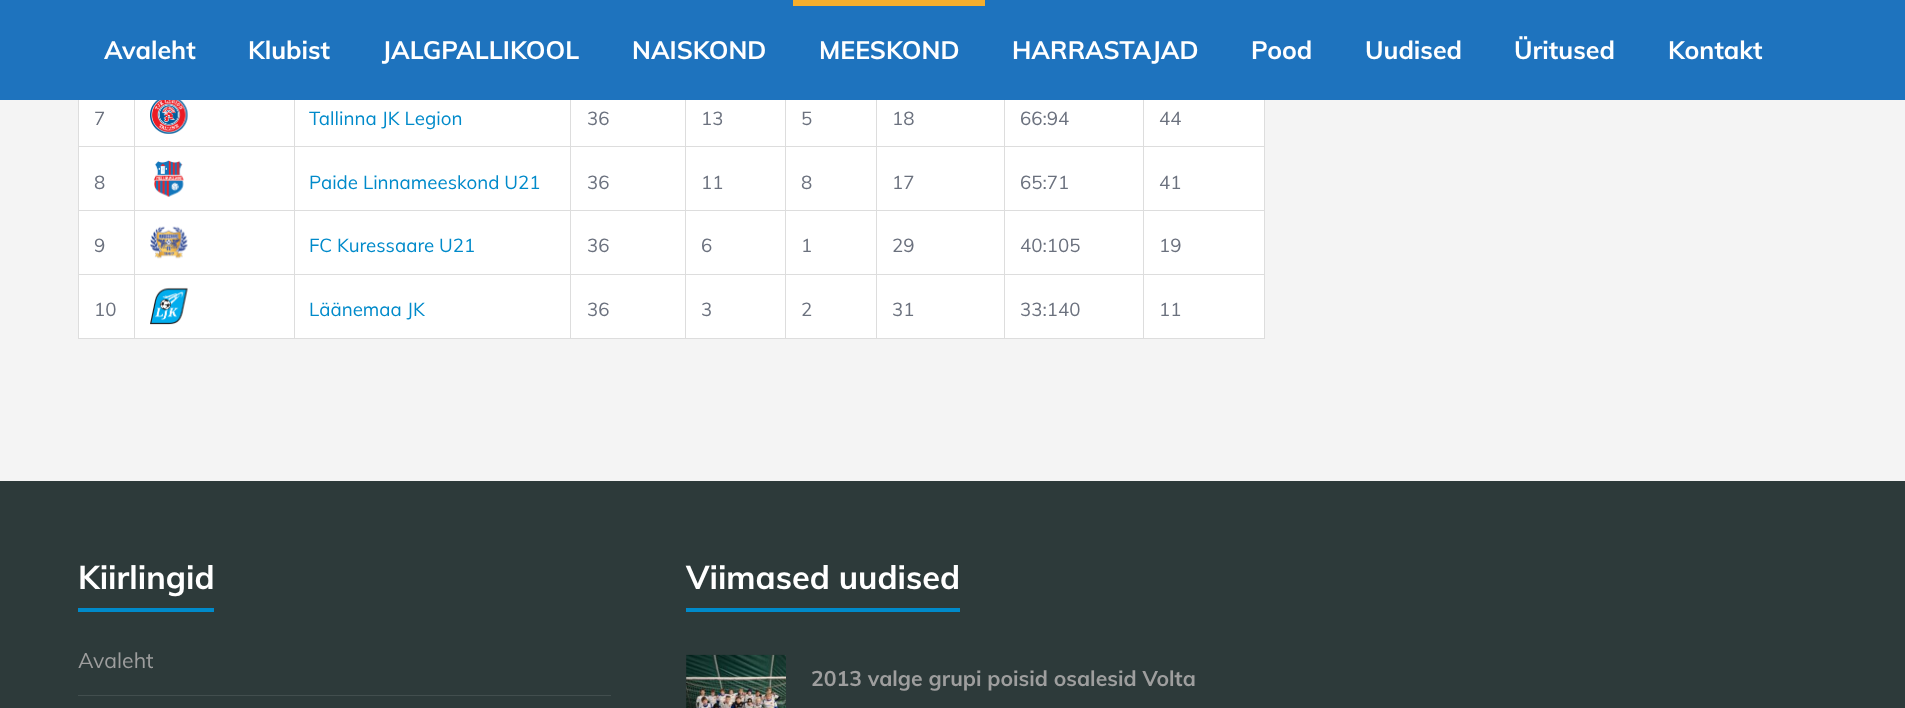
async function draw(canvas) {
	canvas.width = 1905;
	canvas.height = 708;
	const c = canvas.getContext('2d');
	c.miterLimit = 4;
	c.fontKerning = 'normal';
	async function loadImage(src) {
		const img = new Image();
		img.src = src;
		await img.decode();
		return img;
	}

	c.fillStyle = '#f4f4f4';
	c.fillRect(0, 0, 1905, 708);
	c.fillStyle = '#1e73be';
	c.fillRect(0, 0, 1905, 100);
	c.font = 'bold 25px Muli';
	c.fillStyle = '#fff';
	for (const [text, x, y] of [
		['Avaleht', 104, 59],
		['Klubist', 248, 59],
		['JALGPALLIKOOL', 382, 59],
		['NAISKOND', 632, 59],
	]) {
		c.fillText(text, x, y);
	}
	c.fillStyle = '#f6ae2d';
	c.fillRect(793, 0, 192, 6);
	c.fillStyle = '#fff';
	for (const [text, x, y] of [
		['MEESKOND', 819, 59],
		['HARRASTAJAD', 1012, 59],
		['Pood', 1251, 59],
		['Uudised', 1365, 59],
		['Üritused', 1514, 59],
		['Kontakt', 1668, 59],
	]) {
		c.fillText(text, x, y);
	}
	for (const [x, y, w, h, color] of [
		[79, 100, 1185, 238, '#fff'],
		[1264, 100, 1, 239, '#ddd'],
		[78, 338, 1187, 1, '#ddd'],
	]) {
		c.fillStyle = color;
		c.fillRect(x, y, w, h);
	}
	c.font = '18.75px Muli';
	c.fillStyle = '#6b717e';
	c.fillText('7', 94, 125);
	for (const [x, y, w, h, color] of [
		[1143, 146, 122, 1, '#ddd'],
		[1143, 210, 122, 1, '#ddd'],
		[1143, 274, 122, 1, '#ddd'],
		[1143, 274, 1, 65, '#ddd'],
		[1004, 274, 140, 1, '#ddd'],
		[1143, 210, 1, 65, '#ddd'],
		[1004, 210, 140, 1, '#ddd'],
		[1143, 146, 1, 65, '#ddd'],
		[1004, 146, 140, 1, '#ddd'],
		[1004, 274, 1, 65, '#ddd'],
		[876, 274, 129, 1, '#ddd'],
		[1004, 210, 1, 65, '#ddd'],
		[876, 210, 129, 1, '#ddd'],
		[1004, 146, 1, 65, '#ddd'],
		[876, 146, 129, 1, '#ddd'],
		[876, 274, 1, 65, '#ddd'],
		[785, 274, 93, 1, '#ddd'],
		[876, 210, 1, 65, '#ddd'],
		[785, 210, 93, 1, '#ddd'],
		[876, 146, 1, 65, '#ddd'],
		[785, 146, 93, 1, '#ddd'],
		[785, 274, 1, 65, '#ddd'],
		[685, 274, 101, 1, '#ddd'],
		[785, 210, 1, 65, '#ddd'],
		[685, 210, 101, 1, '#ddd'],
		[785, 146, 1, 65, '#ddd'],
		[685, 146, 101, 1, '#ddd'],
		[685, 274, 1, 65, '#ddd'],
		[570, 274, 116, 1, '#ddd'],
		[685, 210, 1, 65, '#ddd'],
		[570, 210, 116, 1, '#ddd'],
		[685, 146, 1, 65, '#ddd'],
		[570, 146, 116, 1, '#ddd'],
		[570, 274, 1, 65, '#ddd'],
		[294, 274, 277, 1, '#ddd'],
		[570, 210, 1, 65, '#ddd'],
		[294, 210, 277, 1, '#ddd'],
		[570, 146, 1, 65, '#ddd'],
		[294, 146, 277, 1, '#ddd'],
		[294, 274, 1, 65, '#ddd'],
		[134, 274, 161, 1, '#ddd'],
		[294, 210, 1, 65, '#ddd'],
		[134, 210, 161, 1, '#ddd'],
		[294, 146, 1, 65, '#ddd'],
		[134, 146, 161, 1, '#ddd'],
		[134, 274, 1, 65, '#ddd'],
		[78, 274, 57, 1, '#ddd'],
		[134, 210, 1, 65, '#ddd'],
		[78, 210, 57, 1, '#ddd'],
		[134, 146, 1, 65, '#ddd'],
		[78, 146, 57, 1, '#ddd'],
		[134, 100, 1, 48, '#ddd'],
	]) {
		c.fillStyle = color;
		c.fillRect(x, y, w, h);
	}
	c.drawImage(await loadImage('img1.png'), 150, 100, 38, 34);
	c.fillRect(294, 100, 1, 48);
	c.fillStyle = '#008aca';
	c.fillText('Tallinna JK Legion', 309, 125);
	c.fillStyle = '#ddd';
	c.fillRect(570, 100, 1, 48);
	c.fillStyle = '#6b717e';
	c.fillText('36', 587, 125);
	c.fillStyle = '#ddd';
	c.fillRect(685, 100, 1, 48);
	c.fillStyle = '#6b717e';
	c.fillText('13', 701, 125);
	c.fillStyle = '#ddd';
	c.fillRect(785, 100, 1, 48);
	c.fillStyle = '#6b717e';
	c.fillText('5', 801, 125);
	c.fillStyle = '#ddd';
	c.fillRect(876, 100, 1, 48);
	c.fillStyle = '#6b717e';
	c.fillText('18', 892, 125);
	c.fillStyle = '#ddd';
	c.fillRect(1004, 100, 1, 48);
	c.fillStyle = '#6b717e';
	c.fillText('66:94', 1020, 125);
	c.fillStyle = '#ddd';
	c.fillRect(1143, 100, 1, 48);
	c.fillStyle = '#6b717e';
	c.fillText('44', 1159, 125);
	for (const [x, y, w, h, color] of [
		[78, 274, 1, 65, '#ddd'],
		[78, 210, 1, 65, '#ddd'],
		[78, 100, 1, 111, '#ddd'],
	]) {
		c.fillStyle = color;
		c.fillRect(x, y, w, h);
	}
	c.fillStyle = '#6b717e';
	c.fillText('8', 94, 189);
	c.drawImage(await loadImage('img2.png'), 153, 160, 31, 37);
	c.fillStyle = '#008aca';
	c.fillText('Paide Linnameeskond U21', 309, 189);
	c.fillStyle = '#6b717e';
	for (const [text, x, y] of [
		['36', 587, 189],
		['11', 701, 189],
		['8', 801, 189],
		['17', 892, 189],
		['65:71', 1020, 189],
		['41', 1159, 189],
		['9', 94, 252],
	]) {
		c.fillText(text, x, y);
	}
	c.drawImage(await loadImage('img3.png'), 150, 226, 38, 33);
	c.fillStyle = '#008aca';
	c.fillText('FC Kuressaare U21', 309, 252);
	c.fillStyle = '#6b717e';
	for (const [text, x, y] of [
		['36', 587, 252],
		['6', 701, 252],
		['1', 801, 252],
		['29', 892, 252],
		['40:105', 1020, 252],
		['19', 1159, 252],
		['10', 94, 316],
	]) {
		c.fillText(text, x, y);
	}
	c.drawImage(await loadImage('img4.png'), 150, 287, 38, 38);
	c.fillStyle = '#008aca';
	c.fillText('Läänemaa JK', 309, 316);
	c.fillStyle = '#6b717e';
	for (const [text, x, y] of [
		['36', 587, 316],
		['3', 701, 316],
		['2', 801, 316],
		['31', 892, 316],
		['33:140', 1020, 316],
		['11', 1159, 316],
	]) {
		c.fillText(text, x, y);
	}
	c.fillStyle = '#2d3a3a';
	c.fillRect(0, 481, 1905, 227);
	c.fillStyle = '#008aca';
	c.fillRect(78, 608, 136, 4);
	c.font = 'bold 32.5px Muli';
	c.fillStyle = '#fff';
	c.fillText('Kiirlingid', 78, 589);
	c.fillStyle = '#424e4e';
	c.fillRect(78, 695, 533, 1);
	c.font = '21.25px Muli';
	c.fillStyle = '#9e9e9e';
	c.fillText('Avaleht', 78, 668);
	c.fillStyle = '#008aca';
	c.fillRect(686, 608, 274, 4);
	c.font = 'bold 32.5px Muli';
	c.fillStyle = '#fff';
	c.fillText('Viimased uudised', 686, 589);
	c.drawImage(await loadImage('img5.png'), 686, 654, 100, 54);
	c.font = 'bold 21.25px Muli';
	c.fillStyle = '#9e9e9e';
	c.fillText('2013 valge grupi poisid osalesid Volta', 811, 686);
}

draw(document.querySelector('canvas'));
